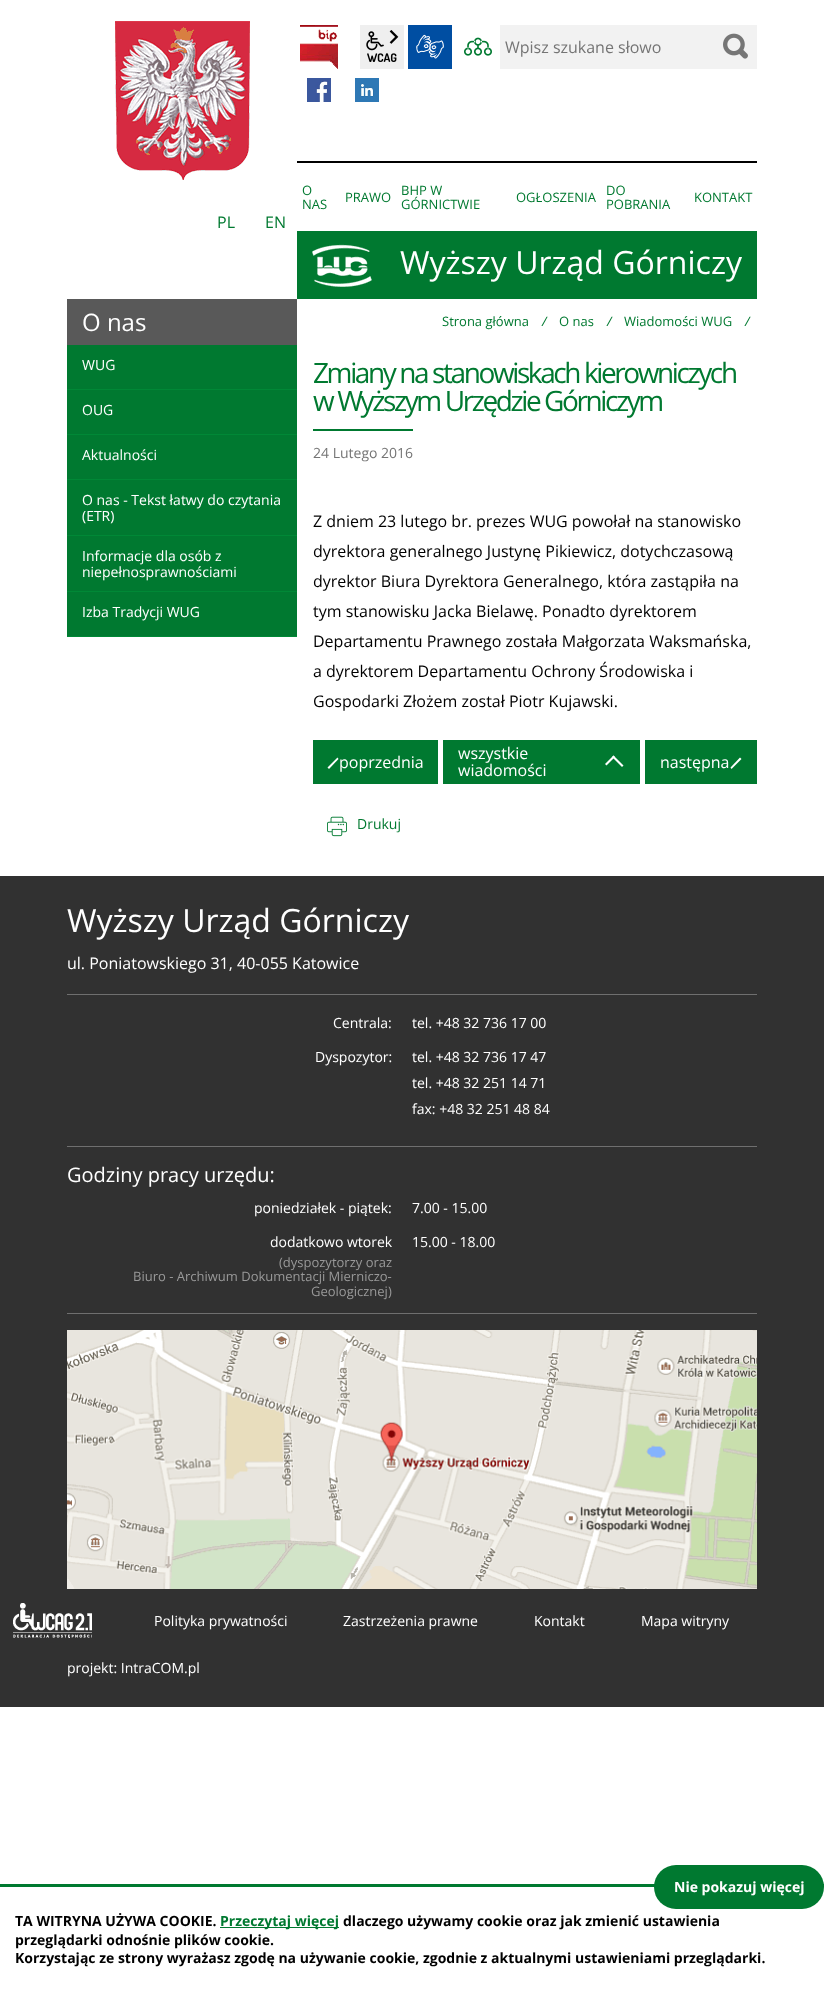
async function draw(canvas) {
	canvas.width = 824;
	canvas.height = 1992;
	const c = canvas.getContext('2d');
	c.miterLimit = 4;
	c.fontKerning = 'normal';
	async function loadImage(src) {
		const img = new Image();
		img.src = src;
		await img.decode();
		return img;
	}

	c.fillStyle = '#fff';
	c.fillRect(0, 0, 824, 1992);
	c.drawImage(await loadImage('img1.png'), 115, 21, 135, 159);
	c.font = '16px Open Sans';
	c.fillStyle = '#007930';
	c.fillText('PL', 217, 228);
	c.fillText('EN', 265, 228);
	c.drawImage(await loadImage('img2.png'), 300, 25, 38, 44);
	c.fillStyle = '#efefef';
	c.fillRect(360, 25, 44, 44);
	c.drawImage(await loadImage('img4.png'), 366, 31, 31, 31);
	c.drawImage(await loadImage('img3.png'), 389, 30, 10, 14);
	c.fillStyle = '#004ea2';
	c.fillRect(408, 25, 44, 44);
	c.drawImage(await loadImage('img5.png'), 416, 34, 28, 25);
	c.drawImage(await loadImage('img6.png'), 464, 37, 28, 19);
	c.drawImage(await loadImage('img7.png'), 307, 78, 24, 24);
	c.drawImage(await loadImage('img8.png'), 355, 78, 24, 24);
	c.fillStyle = '#f2f2f2';
	c.fillRect(500, 25, 257, 44);
	c.fillStyle = '#757575';
	c.fillText('Wpisz szukane słowo', 505, 53);
	c.drawImage(await loadImage('img9.png'), 723, 33, 25, 26);
	c.fillStyle = '#000';
	c.fillRect(297, 161, 460, 2);
	c.font = '13px Open Sans';
	c.fillStyle = '#007930';
	for (const [text, x, y] of [
		['O', 302, 195],
		['NAS', 302, 209],
		['PRAWO', 345, 202],
		['BHP W', 401, 195],
		['GÓRNICTWIE', 401, 209],
		['OGŁOSZENIA', 516, 202],
		['DO', 606, 195],
		['POBRANIA', 606, 209],
		['KONTAKT', 694, 202],
	]) {
		c.fillText(text, x, y);
	}
	c.fillRect(297, 231, 460, 68);
	c.drawImage(await loadImage('img10.png'), 312, 244, 60, 43);
	c.font = '32px Open Sans';
	c.fillStyle = '#fff';
	c.fillText('Wyższy Urząd Górniczy', 400, 274);
	c.fillStyle = '#595959';
	c.fillRect(67, 299, 230, 46);
	c.font = '24px Open Sans';
	c.fillStyle = '#fff';
	c.fillText('O nas', 82, 331);
	c.fillStyle = '#008836';
	c.fillRect(67, 389, 230, 248);
	c.fillStyle = '#007930';
	c.fillRect(67, 345, 230, 44);
	c.font = '14px Open Sans';
	c.fillStyle = '#fff';
	c.fillText('WUG', 82, 370);
	c.fillStyle = '#007930';
	c.fillRect(67, 390, 230, 44);
	c.fillStyle = '#fff';
	c.fillText('OUG', 82, 415);
	c.fillStyle = '#007930';
	c.fillRect(67, 435, 230, 44);
	c.fillStyle = '#fff';
	c.fillText('Aktualności', 82, 460);
	c.fillStyle = '#007930';
	c.fillRect(67, 480, 230, 55);
	c.fillStyle = '#fff';
	c.fillText('O nas - Tekst łatwy do czytania', 82, 505);
	c.fillText('(ETR)', 82, 521);
	c.fillStyle = '#007930';
	c.fillRect(67, 536, 230, 55);
	c.fillStyle = '#fff';
	c.fillText('Informacje dla osób z', 82, 561);
	c.fillText('niepełnosprawnościami', 82, 577);
	c.fillStyle = '#007930';
	c.fillRect(67, 592, 230, 44);
	c.fillStyle = '#fff';
	c.fillText('Izba Tradycji WUG', 82, 617);
	c.font = '13px Open Sans';
	c.fillStyle = '#007930';
	c.fillText('Strona główna', 442, 326);
	c.font = 'italic 13px Open Sans';
	c.fillText('/', 542, 326);
	c.font = '13px Open Sans';
	c.fillText('O nas', 559, 326);
	c.font = 'italic 13px Open Sans';
	c.fillText('/', 607, 326);
	c.font = '13px Open Sans';
	c.fillText('Wiadomości WUG', 624, 326);
	c.font = 'italic 13px Open Sans';
	c.fillText('/', 745, 326);
	c.letterSpacing = '-2.4px';
	c.font = '28px Open Sans';
	c.fillText('Zmiany na stanowiskach kierowniczych', 313, 383);
	c.fillText('w Wyższym Urzędzie Górniczym', 313, 411);
	c.fillRect(313, 429, 100, 2);
	c.letterSpacing = '0px';
	c.font = '14px Open Sans';
	c.fillStyle = '#757575';
	c.fillText('24 Lutego 2016', 313, 458);
	c.font = '16px Open Sans';
	c.fillStyle = '#000';
	for (const [text, x, y] of [
		['Z dniem 23 lutego br. prezes WUG powołał na stanowisko', 313, 527],
		['dyrektora generalnego Justynę Pikiewicz, dotychczasową', 313, 557],
		['dyrektor Biura Dyrektora Generalnego, która zastąpiła na', 313, 587],
		['tym stanowisku Jacka Bielawę. Ponadto dyrektorem', 313, 617],
		['Departamentu Prawnego została Małgorzata Waksmańska,', 313, 647],
		['a dyrektorem Departamentu Ochrony Środowiska i', 313, 677],
		['Gospodarki Złożem został Piotr Kujawski.', 313, 707],
	]) {
		c.fillText(text, x, y);
	}
	c.fillStyle = '#007930';
	c.fillRect(313, 740, 125, 44);
	c.fillStyle = '#fff';
	c.beginPath();
	c.moveTo(329, 769);
	c.lineTo(327.5, 767.5);
	c.lineTo(337.5, 757.5);
	c.lineTo(338.5, 759);
	c.closePath();
	c.fill();
	c.fillText('poprzednia', 339, 768);
	c.fillStyle = '#007930';
	c.fillRect(443, 740, 197, 44);
	c.fillStyle = '#fff';
	c.fillText('wszystkie', 458, 759);
	c.fillText('wiadomości', 458, 776);
	c.beginPath();
	c.moveTo(605, 764);
	c.lineTo(613.5, 755.5);
	c.lineTo(615, 757);
	c.lineTo(606.5, 765.5);
	c.closePath();
	c.fill();
	c.beginPath();
	c.moveTo(612, 757);
	c.lineTo(613.5, 755.5);
	c.lineTo(623.5, 765.5);
	c.lineTo(622, 767);
	c.closePath();
	c.fill();
	c.fillStyle = '#007930';
	c.fillRect(645, 740, 112, 44);
	c.fillStyle = '#fff';
	c.fillText('następna', 660, 768);
	c.beginPath();
	c.moveTo(740, 757.5);
	c.lineTo(741.5, 759);
	c.lineTo(731.5, 769);
	c.lineTo(730.5, 767.5);
	c.closePath();
	c.fill();
	c.drawImage(await loadImage('img11.png'), 327, 816, 20, 21);
	c.font = '14px Open Sans';
	c.fillStyle = '#007930';
	c.fillText('Drukuj', 357, 829);
	c.fillStyle = '#313131';
	c.fillRect(0, 876, 824, 831);
	c.font = '32px Open Sans';
	c.fillStyle = '#fff';
	c.fillText('Wyższy Urząd Górniczy', 67, 932);
	c.font = '16px Open Sans';
	c.fillText('ul. Poniatowskiego 31, 40-055 Katowice', 67, 969);
	c.fillStyle = '#6f6f6f';
	c.fillRect(67, 994, 690, 1);
	c.fillRect(67, 1146, 690, 1);
	c.font = '14px Open Sans';
	c.fillStyle = '#fff';
	for (const [text, x, y] of [
		['Centrala:', 333, 1028],
		['tel. +48 32 736 17 00', 412, 1028],
		['Dyspozytor:', 315, 1062],
		['tel. +48 32 736 17 47', 412, 1062],
		['tel. +48 32 251 14 71', 412, 1088],
		['fax: +48 32 251 48 84', 412, 1114],
	]) {
		c.fillText(text, x, y);
	}
	c.font = '20px Open Sans';
	c.fillText('Godziny pracy urzędu:', 67, 1182);
	c.fillStyle = '#6f6f6f';
	c.fillRect(67, 1313, 690, 1);
	c.font = '14px Open Sans';
	c.fillStyle = '#fff';
	for (const [text, x, y] of [
		['poniedziałek - piątek:', 254, 1213],
		['7.00 - 15.00', 412, 1213],
		['dodatkowo wtorek', 270, 1247],
	]) {
		c.fillText(text, x, y);
	}
	c.font = '13px Open Sans';
	c.fillStyle = '#999';
	for (const [text, x, y] of [
		['(dyspozytorzy oraz', 279, 1267],
		['Biuro - Archiwum Dokumentacji Mierniczo-', 133, 1281],
		['Geologicznej)', 311, 1296],
	]) {
		c.fillText(text, x, y);
	}
	c.font = '14px Open Sans';
	c.fillStyle = '#fff';
	c.fillText('15.00 - 18.00', 412, 1247);
	c.drawImage(await loadImage('img12.png'), 67, 1330, 690, 259);
	c.drawImage(await loadImage('img13.png'), 13, 1603, 79, 35);
	for (const [text, x, y] of [
		['Polityka prywatności', 154, 1626],
		['Zastrzeżenia prawne', 343, 1626],
		['Kontakt', 534, 1626],
		['Mapa witryny', 641, 1626],
		['projekt: IntraCOM.pl', 67, 1673],
	]) {
		c.fillText(text, x, y);
	}
	c.fillStyle = '#007930';
	c.fillRect(0, 1884, 824, 3);
	c.beginPath();
	c.roundRect(654, 1865, 170, 44, 22);
	c.fill();
	c.font = 'bold 14px Open Sans';
	c.fillStyle = '#fff';
	c.fillText('Nie pokazuj więcej', 674, 1892);
	c.fillStyle = '#000';
	c.fillText('TA WITRYNA UŻYWA COOKIE.', 15, 1926);
	c.fillStyle = '#007930';
	c.fillRect(220, 1927, 119, 1);
	c.fillText('Przeczytaj więcej', 220, 1926);
	c.fillStyle = '#000';
	for (const [text, x, y] of [
		['dlaczego używamy cookie oraz jak zmienić ustawienia', 343, 1926],
		['przeglądarki odnośnie plików cookie.', 15, 1945],
		['Korzystając ze strony wyrażasz zgodę na używanie cookie, zgodnie z aktualnymi ustawieniami przeglądarki.', 15, 1963],
	]) {
		c.fillText(text, x, y);
	}
}

draw(document.querySelector('canvas'));
